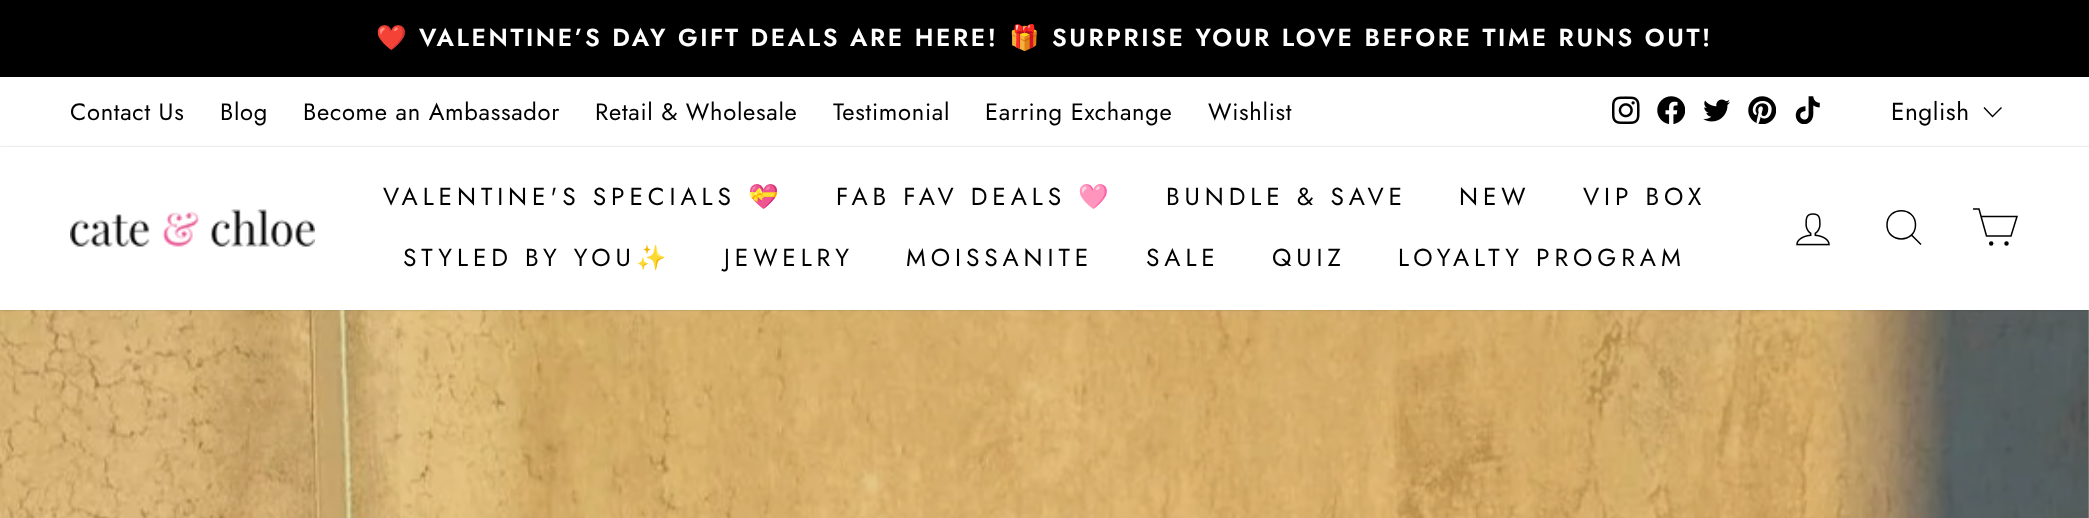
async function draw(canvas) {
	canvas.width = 2089;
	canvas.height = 518;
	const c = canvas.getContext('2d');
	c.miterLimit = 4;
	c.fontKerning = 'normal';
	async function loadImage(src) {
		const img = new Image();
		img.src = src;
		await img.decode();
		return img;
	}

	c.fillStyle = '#fff';
	c.fillRect(0, 0, 2089, 518);
	c.fillStyle = '#000';
	c.fillRect(0, 0, 2089, 77);
	c.letterSpacing = '2.6px';
	c.font = 'bold 24.5px Noto Color Emoji';
	c.fillStyle = '#fff';
	c.fillText('❤️', 376, 46);
	c.font = '600 24.5px Jost';
	c.fillText('VALENTINE’S DAY GIFT DEALS ARE HERE!', 419, 46);
	c.font = 'bold 24.5px Noto Color Emoji';
	c.fillText('🎁', 1009, 46);
	c.font = '600 24.5px Jost';
	c.fillText('SURPRISE YOUR LOVE BEFORE TIME RUNS OUT!', 1052, 46);
	c.letterSpacing = '0.7px';
	c.font = '23.75px Jost';
	c.fillStyle = '#000';
	for (const [text, x, y] of [
		['Contact Us', 70, 120],
		['Blog', 220, 120],
		['Become an Ambassador', 303, 120],
		['Retail & Wholesale', 595, 120],
		['Testimonial', 833, 120],
		['Earring Exchange', 985, 120],
		['Wishlist', 1208, 120],
	]) {
		c.fillText(text, x, y);
	}
	c.drawImage(await loadImage('img1.png'), 1612, 96, 28, 28);
	c.drawImage(await loadImage('img2.png'), 1657, 96, 28, 28);
	c.drawImage(await loadImage('img3.png'), 1703, 99, 27, 23);
	c.drawImage(await loadImage('img4.png'), 1748, 96, 28, 28);
	c.drawImage(await loadImage('img5.png'), 1795, 96, 25, 28);
	c.letterSpacing = '0.5px';
	c.font = '24.5px Jost';
	c.fillText('English', 1891, 120);
	c.beginPath();
	c.moveTo(1984, 107.5);
	c.lineTo(1992.5, 116.5);
	c.lineTo(2001.5, 107.5);
	c.strokeStyle = '#000';
	c.lineWidth = 1.4;
	c.stroke();
	c.drawImage(await loadImage('img8.png'), 0, 310, 2089, 208);
	c.fillStyle = '#00000033';
	c.filter = 'blur(1px)';
	c.beginPath();
	c.rect(0, 147, 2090, 163);
	c.fill();
	c.filter = 'none';
	c.fillStyle = '#fff';
	c.fillRect(0, 147, 2089, 163);
	c.drawImage(await loadImage('img6.png'), 70, 209, 245, 38);
	c.letterSpacing = '4.9px';
	c.fillStyle = '#000';
	c.fillText('VALENTINE\'S SPECIALS', 383, 205);
	c.font = '24.5px Noto Color Emoji';
	c.fillText('💝', 748, 205);
	c.font = '24.5px Jost';
	c.fillText('FAB FAV DEALS', 836, 205);
	c.font = '24.5px Noto Color Emoji';
	c.fillText('🩷', 1078, 205);
	c.font = '24.5px Jost';
	for (const [text, x, y] of [
		['BUNDLE & SAVE', 1166, 205],
		['NEW', 1459, 205],
		['VIP BOX', 1583, 205],
		['STYLED BY YOU', 403, 266],
	]) {
		c.fillText(text, x, y);
	}
	c.font = '24.5px Noto Color Emoji';
	c.fillText('✨', 636, 266);
	c.font = '24.5px Jost';
	for (const [text, x, y] of [
		['JEWELRY', 724, 266],
		['MOISSANITE', 906, 266],
		['SALE', 1146, 266],
		['QUIZ', 1272, 266],
		['LOYALTY PROGRAM', 1398, 266],
	]) {
		c.fillText(text, x, y);
	}
	c.drawImage(await loadImage('img7.png'), 1796, 213, 34, 33);
	c.beginPath();
	c.moveTo(1915.5, 225);
	c.bezierCurveTo(1915.5, 243.5, 1887, 243.5, 1887, 225);
	c.bezierCurveTo(1887, 206, 1915.5, 206, 1915.5, 225);
	c.closePath();
	c.moveTo(1921, 244.5);
	c.lineTo(1911.5, 235);
	c.lineWidth = 1.5;
	c.stroke();
	c.beginPath();
	c.moveTo(1981, 216.5);
	c.lineTo(2017, 216.5);
	c.lineTo(2011, 236);
	c.lineTo(1986.5, 236);
	c.lineTo(1979, 209);
	c.lineTo(1973, 209);
	c.stroke();
	c.beginPath();
	c.arc(1991.2, 243.6, 1.5, 0, 2 * Math.PI);
	c.fill();
	c.stroke();
	c.beginPath();
	c.arc(2006.5, 243.6, 1.5, 0, 2 * Math.PI);
	c.fill();
	c.stroke();
}

draw(document.querySelector('canvas'));
